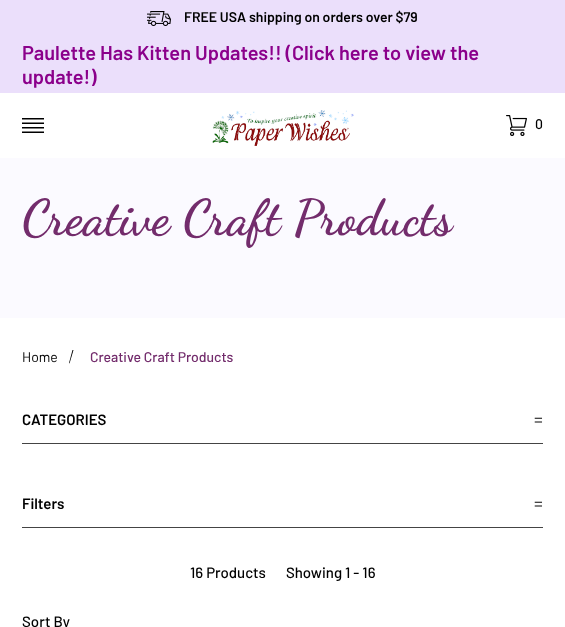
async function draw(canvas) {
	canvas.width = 565;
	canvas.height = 627;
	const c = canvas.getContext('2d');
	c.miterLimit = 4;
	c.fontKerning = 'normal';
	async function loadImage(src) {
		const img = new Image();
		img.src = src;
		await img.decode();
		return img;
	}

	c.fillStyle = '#fff';
	c.fillRect(0, 0, 565, 627);
	c.fillStyle = '#ebdffb';
	c.fillRect(0, 0, 565, 93);
	c.drawImage(await loadImage('img1.png'), 147, 11, 24, 15);
	c.font = '600 14px Barlow';
	c.fillStyle = '#000';
	c.fillText('FREE USA shipping on orders over $79', 184, 22);
	c.font = '600 20px Barlow';
	c.fillStyle = '#8b008b';
	c.fillText('Paulette Has Kitten Updates!! (Click here to view the', 22, 60);
	c.fillText('update!)', 22, 84);
	c.drawImage(await loadImage('img2.png'), 22, 118, 22, 15);
	c.drawImage(await loadImage('img3.png'), 212, 110, 142, 36);
	c.drawImage(await loadImage('img4.png'), 506, 115, 21, 21);
	c.font = '500 14px Barlow';
	c.fillStyle = '#000';
	c.fillText('0', 535, 129);
	c.fillStyle = '#fbfaff';
	c.fillRect(0, 158, 565, 160);
	c.font = 'bold 50px Dancing Script';
	c.fillStyle = '#732c6c';
	c.fillText('Creative Craft Products', 22, 234);
	c.font = '14px Barlow';
	c.fillStyle = '#000';
	c.fillText('Home', 22, 362);
	c.beginPath();
	c.moveTo(72.5, 350);
	c.lineTo(73.5, 350);
	c.lineTo(69.5, 363.5);
	c.lineTo(69, 363);
	c.closePath();
	c.fill();
	c.font = '500 14px Barlow';
	c.fillStyle = '#732c6c';
	c.fillText('Creative Craft Products', 90, 362);
	c.fillStyle = '#444';
	c.fillRect(22, 443, 521, 1);
	c.font = '600 15px Barlow';
	c.fillStyle = '#000';
	c.fillText('CATEGORIES', 22, 425);
	c.font = '15px Liberation Sans';
	c.fillText('=', 534, 425);
	c.fillStyle = '#444';
	c.fillRect(22, 527, 521, 1);
	c.font = '600 15px Barlow';
	c.fillStyle = '#000';
	c.fillText('Filters', 22, 509);
	c.font = '15px Liberation Sans';
	c.fillText('=', 534, 509);
	c.font = '500 15px Barlow';
	for (const [text, x, y] of [
		['16 Products', 190, 578],
		['Showing 1 - 16', 286, 578],
		['Sort By', 22, 627],
	]) {
		c.fillText(text, x, y);
	}
}

draw(document.querySelector('canvas'));
